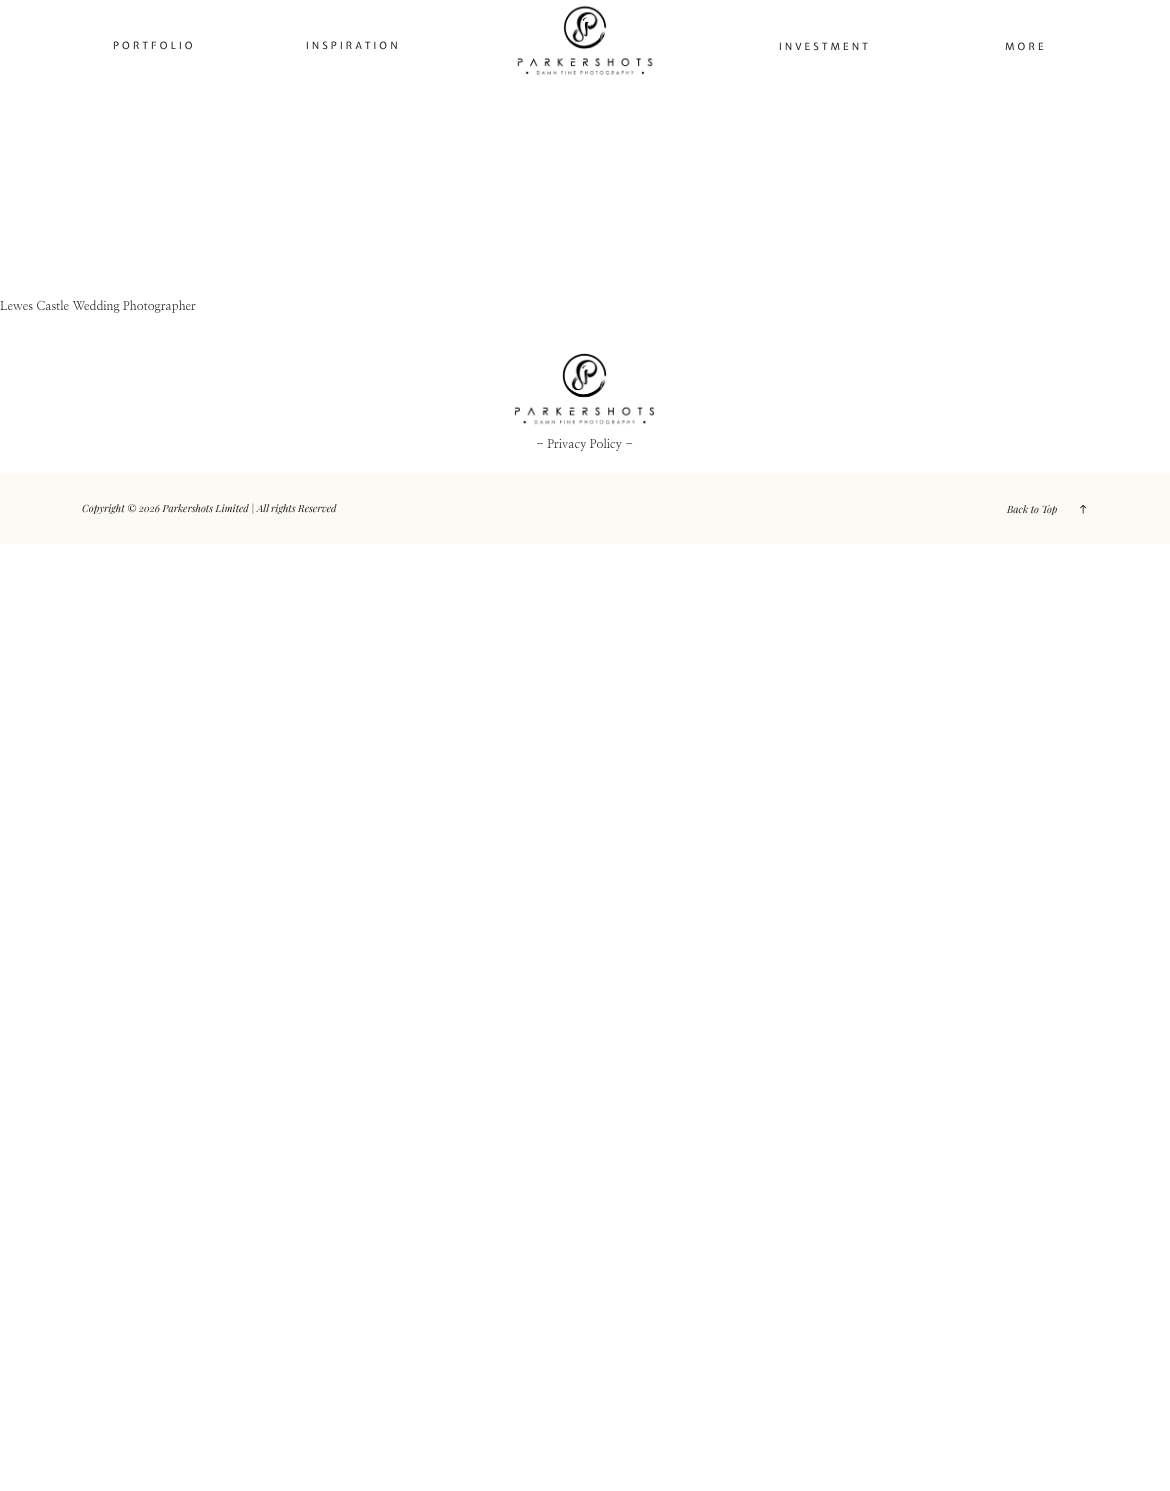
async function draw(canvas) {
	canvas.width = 1170;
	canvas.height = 1491;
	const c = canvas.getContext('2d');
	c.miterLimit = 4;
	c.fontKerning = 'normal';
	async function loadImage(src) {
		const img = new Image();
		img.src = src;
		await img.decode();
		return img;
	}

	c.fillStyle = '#fff';
	c.fillRect(0, 0, 1170, 1491);
	c.letterSpacing = '3px';
	c.font = '10.05px Expletus Sans';
	c.fillStyle = '#161615';
	c.fillText('PORTFOLIO', 113, 49);
	c.fillText('INSPIRATION', 306, 49);
	c.drawImage(await loadImage('img1.png'), 517, 5, 136, 70);
	c.fillText('INVESTMENT', 779, 50);
	c.fillText('MORE', 1005, 50);
	c.letterSpacing = '0px';
	c.font = '12.3px NanumMyeongjo';
	c.fillText('Lewes Castle Wedding Photographer', 0, 310);
	c.drawImage(await loadImage('img2.png'), 514, 353, 141, 72);
	c.fillText('- Privacy Policy -', 536, 448);
	c.fillStyle = '#fcfaf4';
	c.fillRect(0, 474, 1170, 70);
	c.font = 'italic 10.05px Playfair Display';
	c.fillStyle = '#161615';
	c.fillText('Copyright © 2026 Parkershots Limited | All rights Reserved', 82, 512);
	c.fillText('Back to Top', 1007, 513);
	c.drawImage(await loadImage('img3.png'), 1080, 504, 7, 10);
}

draw(document.querySelector('canvas'));
